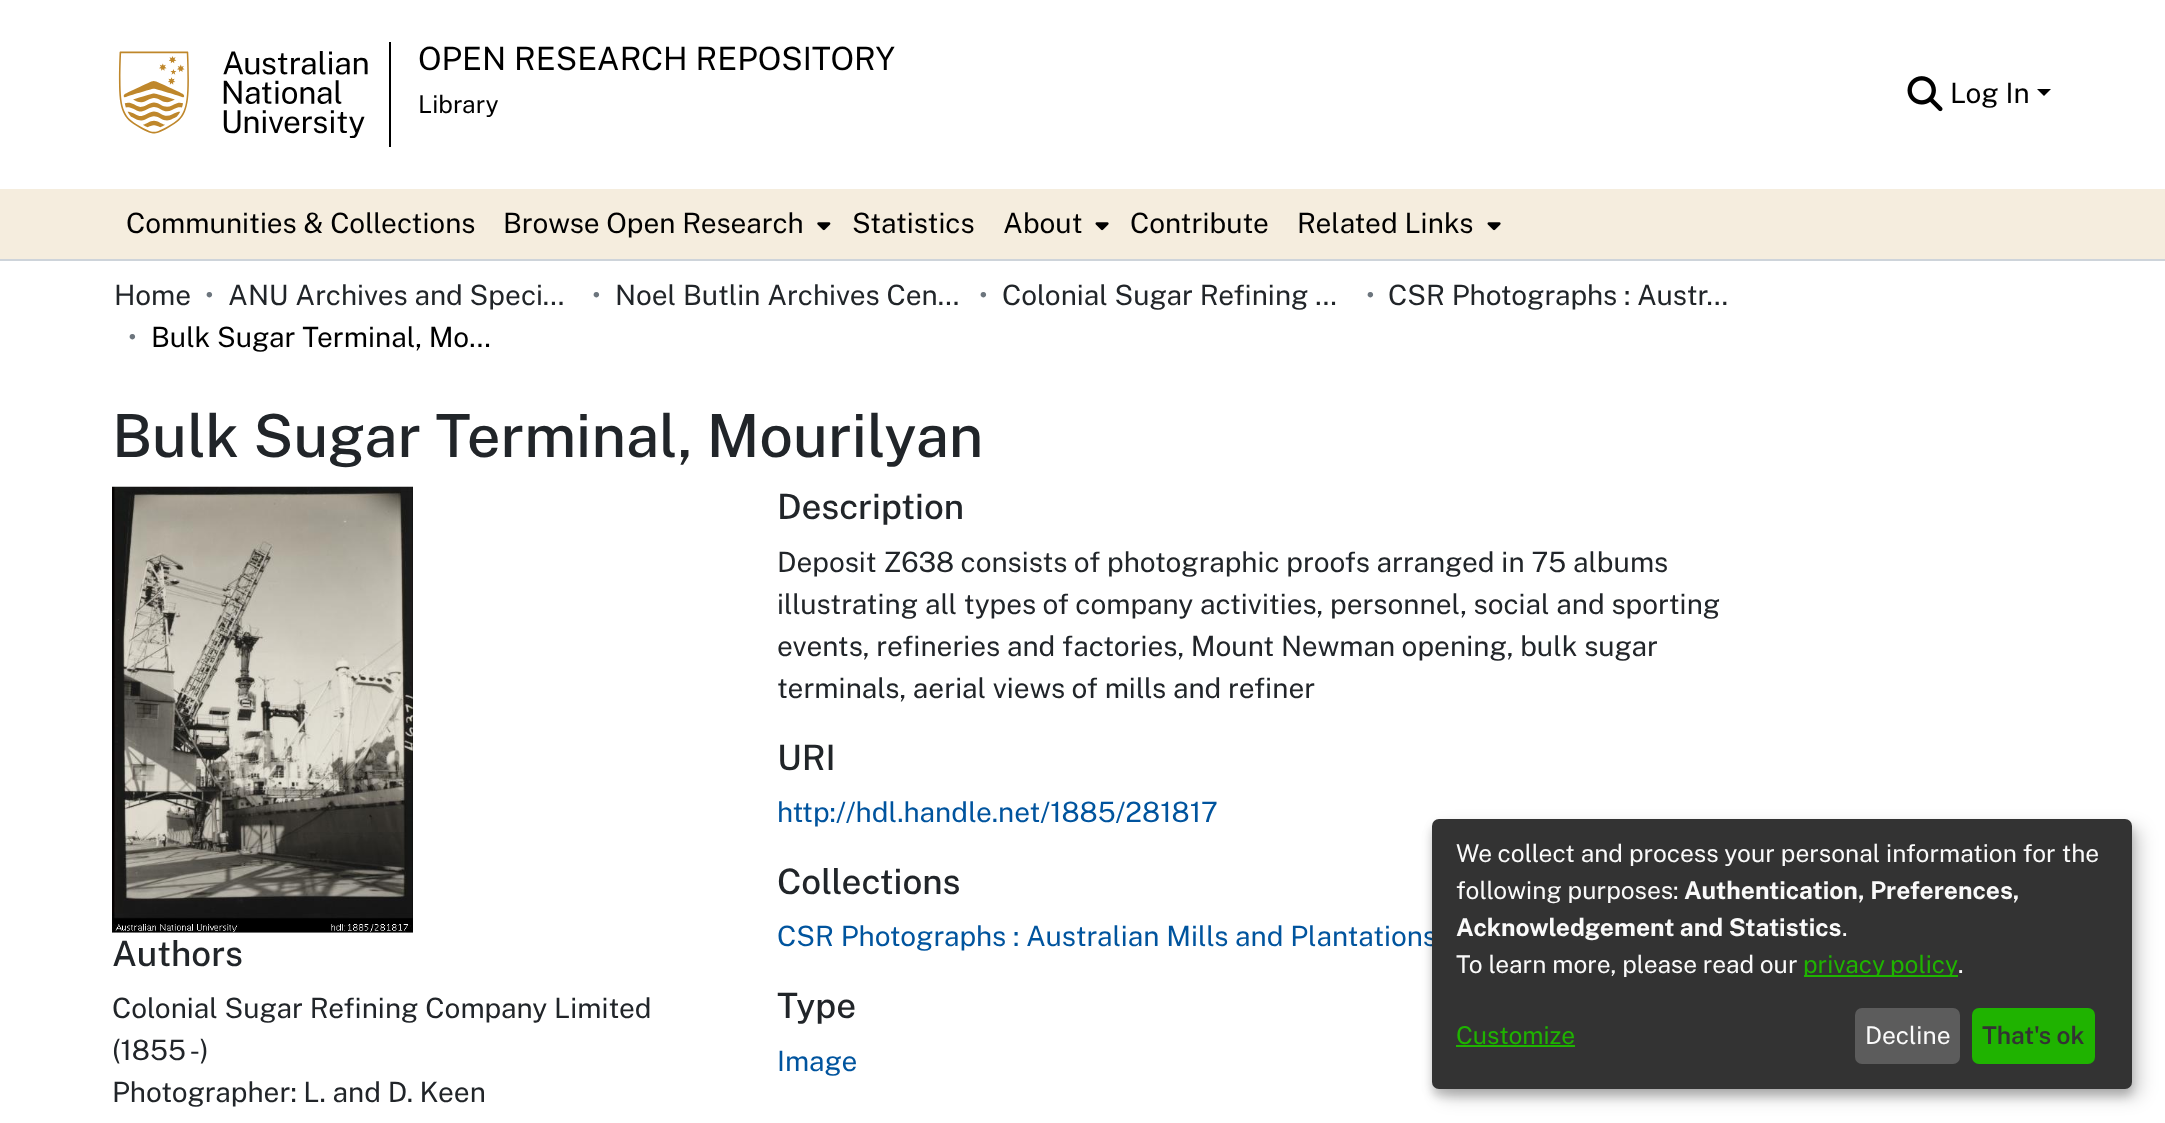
async function draw(canvas) {
	canvas.width = 2165;
	canvas.height = 1123;
	const c = canvas.getContext('2d');
	c.miterLimit = 4;
	c.fontKerning = 'normal';
	async function loadImage(src) {
		const img = new Image();
		img.src = src;
		await img.decode();
		return img;
	}

	c.fillStyle = '#fff';
	c.fillRect(0, 0, 2165, 1123);
	c.fillStyle = '#ced4da';
	c.fillRect(0, 259, 2165, 2);
	c.fillStyle = '#000';
	c.fillRect(389, 42, 2, 105);
	c.drawImage(await loadImage('img1.png'), 118, 51, 250, 87);
	c.font = '32.1px Public Sans';
	c.fillText('OPEN RESEARCH REPOSITORY', 418, 70);
	c.font = '24.5px Public Sans';
	c.fillText('Library', 418, 113);
	c.drawImage(await loadImage('img2.png'), 1907, 76, 36, 36);
	c.font = '28px Public Sans';
	c.fillText('Log In', 1950, 103);
	c.beginPath();
	c.moveTo(2037, 89);
	c.lineTo(2051, 89);
	c.lineTo(2044, 96);
	c.closePath();
	c.fill();
	c.fillStyle = '#f5edde';
	c.fillRect(0, 189, 2165, 70);
	c.fillStyle = '#000';
	c.fillText('Communities & Collections', 126, 233);
	c.fillText('Browse Open Research', 503, 233);
	c.drawImage(await loadImage('img3.png'), 817, 222, 14, 9);
	c.fillText('Statistics', 852, 233);
	c.fillText('About', 1003, 233);
	c.drawImage(await loadImage('img4.png'), 1095, 222, 14, 9);
	c.fillText('Contribute', 1130, 233);
	c.fillText('Related Links', 1297, 233);
	c.drawImage(await loadImage('img4.png'), 1487, 222, 14, 9);
	c.fillStyle = '#212529';
	c.fillText('Home', 114, 305);
	c.fillStyle = '#6c757d';
	c.fillText('•', 205, 305);
	c.fillStyle = '#212529';
	c.fillText('ANU Archives and Speci…', 228, 305);
	c.fillStyle = '#6c757d';
	c.fillText('•', 592, 305);
	c.fillStyle = '#212529';
	c.fillText('Noel Butlin Archives Cen…', 615, 305);
	c.fillStyle = '#6c757d';
	c.fillText('•', 979, 305);
	c.fillStyle = '#212529';
	c.fillText('Colonial Sugar Refining …', 1002, 305);
	c.fillStyle = '#6c757d';
	c.fillText('•', 1366, 305);
	c.fillStyle = '#212529';
	c.fillText('CSR Photographs : Austr…', 1388, 305);
	c.fillStyle = '#6c757d';
	c.fillText('•', 128, 347);
	c.fillStyle = '#000';
	c.fillText('Bulk Sugar Terminal, Mo…', 151, 347);
	c.font = '500 59.5px Public Sans';
	c.fillStyle = '#212529';
	c.fillText('Bulk Sugar Terminal, Mourilyan', 112, 457);
	c.drawImage(await loadImage('img5.png'), 112, 486, 301, 447);
	c.font = '500 35px Public Sans';
	c.fillText('Authors', 112, 966);
	c.font = '28px Public Sans';
	for (const [text, x, y] of [
		['Colonial Sugar Refining Company Limited', 112, 1018],
		['(1855 -)', 112, 1060],
		['Photographer: L. and D. Keen', 112, 1102],
	]) {
		c.fillText(text, x, y);
	}
	c.font = '500 35px Public Sans';
	c.fillText('Description', 777, 519);
	c.font = '28px Public Sans';
	for (const [text, x, y] of [
		['Deposit Z638 consists of photographic proofs arranged in 75 albums', 777, 572],
		['illustrating all types of company activities, personnel, social and sporting', 777, 614],
		['events, refineries and factories, Mount Newman opening, bulk sugar', 777, 656],
		['terminals, aerial views of mills and refiner', 777, 698],
	]) {
		c.fillText(text, x, y);
	}
	c.font = '500 35px Public Sans';
	c.fillText('URI', 777, 770);
	c.font = '28px Public Sans';
	c.fillStyle = '#00549e';
	c.fillText('http://hdl.handle.net/1885/281817', 777, 822);
	c.font = '500 35px Public Sans';
	c.fillStyle = '#212529';
	c.fillText('Collections', 777, 894);
	c.font = '28px Public Sans';
	c.fillStyle = '#00549e';
	c.fillText('CSR Photographs : Australian Mills and Plantations', 777, 946);
	c.font = '500 35px Public Sans';
	c.fillStyle = '#212529';
	c.fillText('Type', 777, 1018);
	c.font = '28px Public Sans';
	c.fillStyle = '#00549e';
	c.fillText('Image', 777, 1071);
	c.fillStyle = '#00000030';
	c.filter = 'blur(9px)';
	c.beginPath();
	c.roundRect(1440, 828, 700, 269, 7);
	c.fill();
	c.filter = 'none';
	c.fillStyle = '#00000033';
	c.filter = 'blur(5px)';
	c.beginPath();
	c.roundRect(1432, 826, 700, 270, 7);
	c.fill();
	c.filter = 'none';
	c.fillStyle = '#333';
	c.beginPath();
	c.roundRect(1432, 819, 700, 270, 7);
	c.fill();
	c.font = '24.5px Public Sans';
	c.fillStyle = '#fafafa';
	c.fillText('We collect and process your personal information for the', 1456, 862);
	c.fillText('following purposes:', 1456, 899);
	c.font = 'bold 24.5px Public Sans';
	c.fillText('Authentication, Preferences,', 1684, 899);
	c.fillText('Acknowledgement and Statistics', 1456, 936);
	c.font = '24.5px Public Sans';
	c.fillText('.', 1842, 936);
	c.fillText('To learn more, please read our', 1456, 973);
	c.fillStyle = '#1fb300';
	c.fillRect(1804, 975, 154, 2);
	c.wordSpacing = '-1px';
	c.fillText('privacy policy', 1803, 973);
	c.wordSpacing = '0px';
	c.fillStyle = '#fafafa';
	c.fillText('.', 1958, 973);
	c.fillStyle = '#1fb300';
	c.fillText('Customize', 1456, 1044);
	c.fillRect(1456, 1045, 119, 2);
	c.fillStyle = '#5c5c5c';
	c.beginPath();
	c.roundRect(1855, 1008, 105, 56, 7);
	c.fill();
	c.fillStyle = '#fafafa';
	c.fillText('Decline', 1865, 1044);
	c.fillStyle = '#1fb300';
	c.beginPath();
	c.roundRect(1972, 1008, 123, 56, 7);
	c.fill();
	c.font = '600 24.5px Public Sans';
	c.fillStyle = '#333';
	c.fillText('That\'s ok', 1982, 1044);
}

draw(document.querySelector('canvas'));
